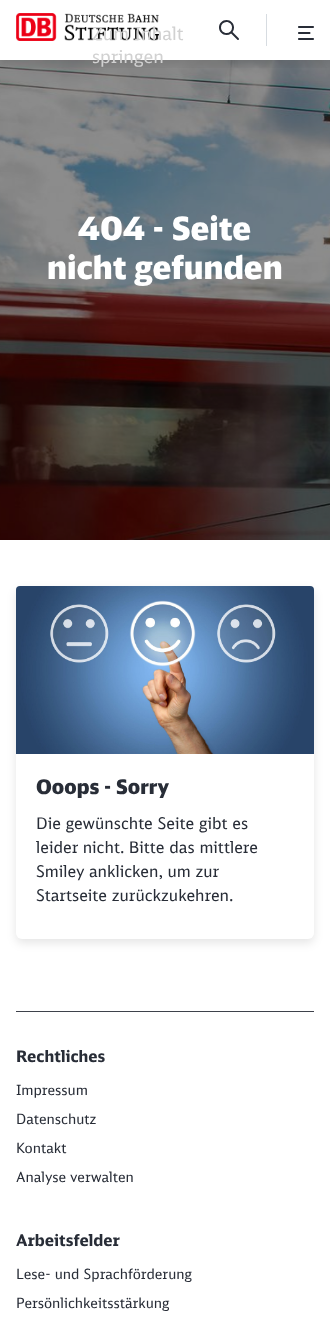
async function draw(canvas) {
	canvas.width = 330;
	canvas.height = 1320;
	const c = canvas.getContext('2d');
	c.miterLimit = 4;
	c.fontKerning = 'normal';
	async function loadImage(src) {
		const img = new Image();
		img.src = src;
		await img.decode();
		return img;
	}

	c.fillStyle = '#fff';
	c.fillRect(0, 0, 330, 1320);
	c.drawImage(await loadImage('img4.png'), 0, 60, 330, 480);
	c.save();
	c.beginPath();
	c.rect(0, 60, 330, 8);
	c.clip();
	c.fillStyle = '#0000001a';
	c.filter = 'blur(5px)';
	c.beginPath();
	c.rect(0, 4, 330, 60);
	c.fill();
	c.filter = 'none';
	c.restore();
	c.drawImage(await loadImage('img1.png'), 16, 13, 143, 28);
	c.drawImage(await loadImage('img2.png'), 219, 20, 20, 20);
	c.fillStyle = '#d7dce1';
	c.fillRect(266, 14, 1, 32);
	c.drawImage(await loadImage('img3.png'), 298, 26, 16, 14);
	c.font = '18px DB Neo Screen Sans';
	c.fillStyle = '#d1d1d1';
	c.fillText('Zum Inhalt', 92, 40);
	c.fillText('springen', 92, 63);
	c.font = '900 32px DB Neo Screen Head';
	c.fillStyle = '#fff';
	c.fillText('404 - Seite', 78, 240);
	c.fillText('nicht gefunden', 47, 279);
	c.fillStyle = '#0000001a';
	c.filter = 'blur(5px)';
	c.beginPath();
	c.roundRect(16, 590, 298, 353, 6);
	c.fill();
	c.filter = 'none';
	c.fillStyle = '#fff';
	c.beginPath();
	c.roundRect(16, 586, 298, 353, 6);
	c.fill();
	c.drawImage(await loadImage('img5.png'), 16, 586, 298, 168);
	c.font = '900 20px DB Neo Screen Head';
	c.fillStyle = '#282d37';
	c.fillText('Ooops - Sorry', 36, 794);
	c.font = '16px DB Neo Screen Sans';
	for (const [text, x, y] of [
		['Die gewünschte Seite gibt es', 36, 829],
		['leider nicht. Bitte das mittlere', 36, 853],
		['Smiley anklicken, um zur', 36, 877],
		['Startseite zurückzukehren.', 36, 901],
	]) {
		c.fillText(text, x, y);
	}
	c.fillStyle = '#3e424b';
	c.fillRect(16, 1011, 298, 1);
	c.font = 'bold 16px DB Neo Screen Sans';
	c.fillStyle = '#282d37';
	c.fillText('Rechtliches', 16, 1062);
	c.font = '14px DB Neo Screen Sans';
	for (const [text, x, y] of [
		['Impressum', 16, 1095],
		['Datenschutz', 16, 1124],
		['Kontakt', 16, 1153],
		['Analyse verwalten', 16, 1182],
	]) {
		c.fillText(text, x, y);
	}
	c.font = 'bold 16px DB Neo Screen Sans';
	c.fillText('Arbeitsfelder', 16, 1246);
	c.font = '14px DB Neo Screen Sans';
	c.fillText('Lese- und Sprachförderung', 16, 1279);
	c.fillText('Persönlichkeitsstärkung', 16, 1308);
}

draw(document.querySelector('canvas'));
